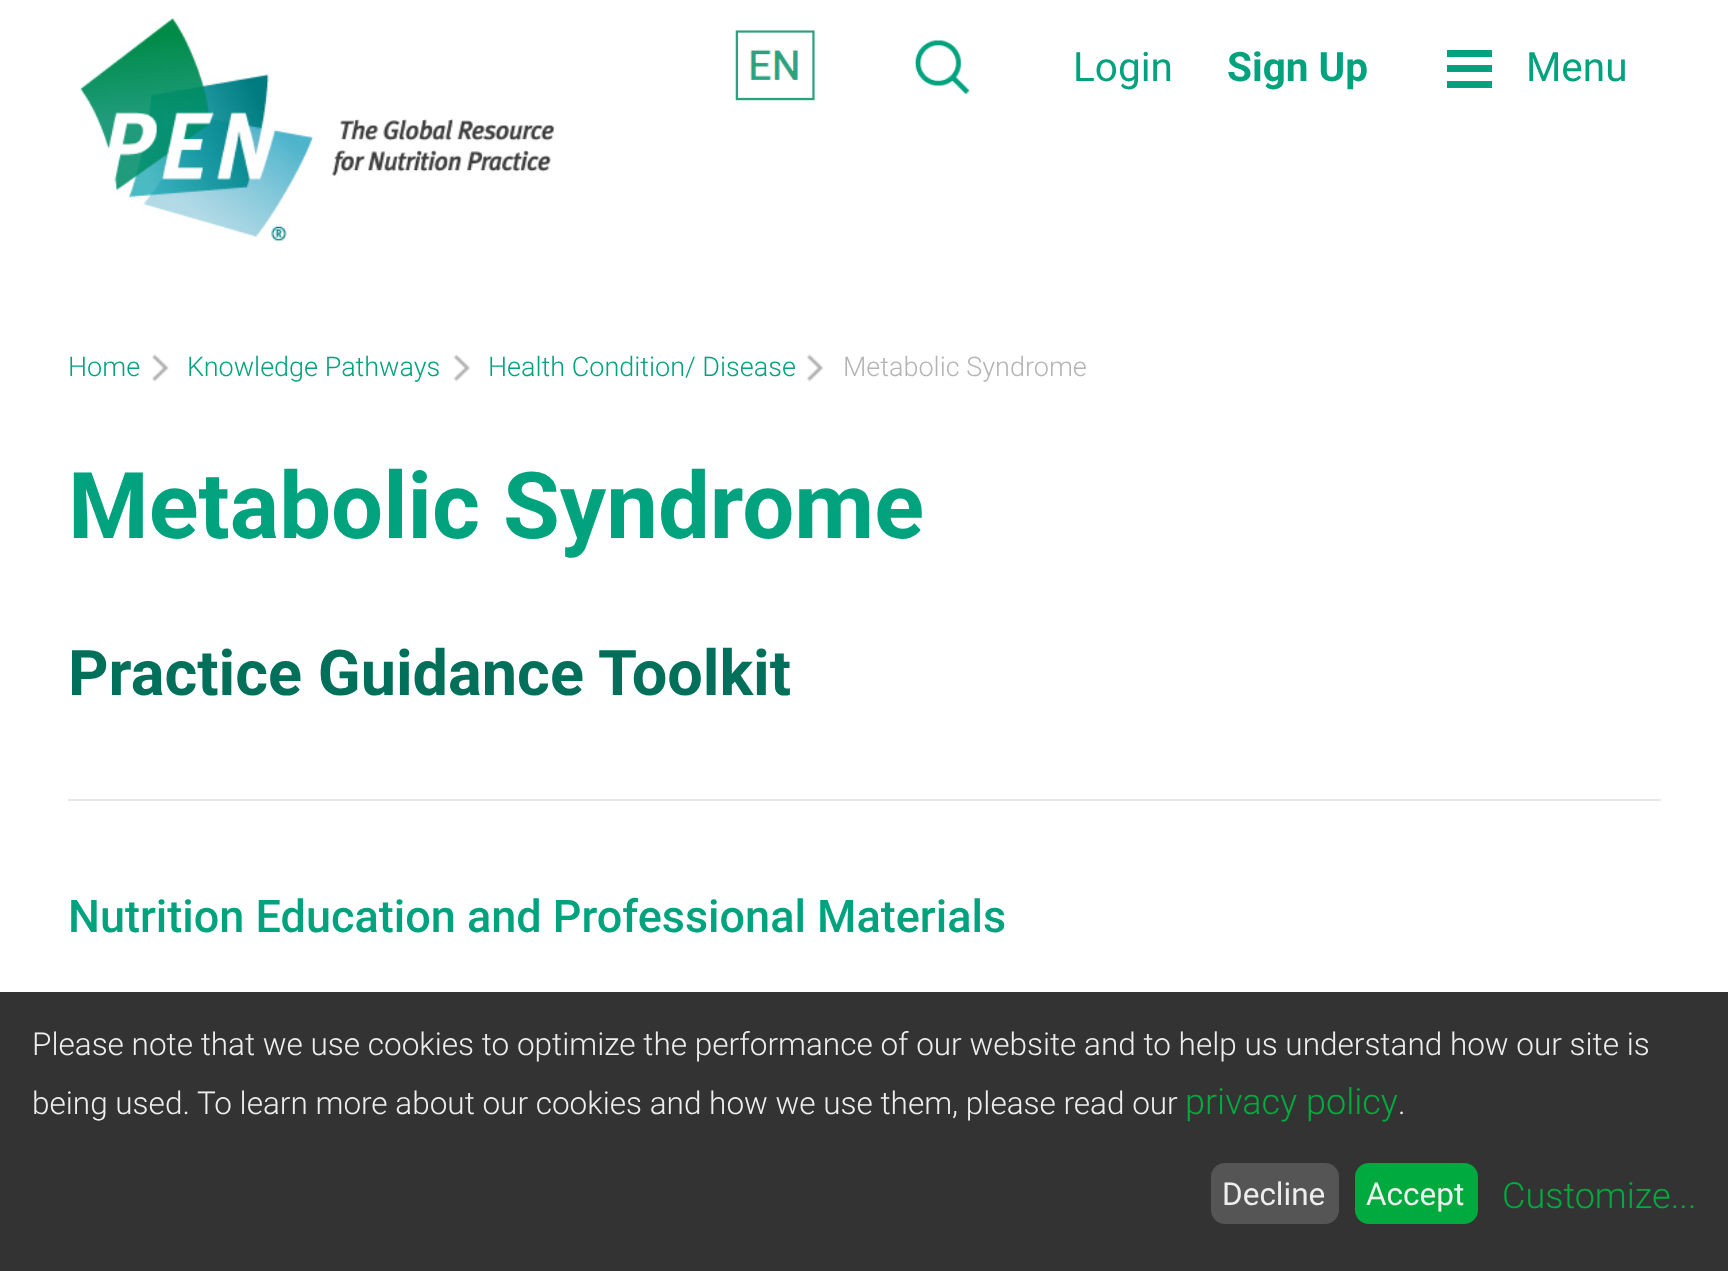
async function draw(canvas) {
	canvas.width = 1728;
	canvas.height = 1271;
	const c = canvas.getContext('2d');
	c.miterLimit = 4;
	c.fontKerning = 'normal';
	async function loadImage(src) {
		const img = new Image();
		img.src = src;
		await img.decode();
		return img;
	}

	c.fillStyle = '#fff';
	c.fillRect(0, 0, 1728, 1271);
	c.drawImage(await loadImage('img1.png'), 80, 18, 475, 223);
	c.drawImage(await loadImage('img2.png'), 735, 30, 80, 71);
	c.drawImage(await loadImage('img3.png'), 914, 40, 56, 55);
	c.font = '40.5px Roboto';
	c.fillStyle = '#01a37e';
	c.fillText('Login', 1073, 81);
	c.font = 'bold 40.5px Roboto';
	c.fillText('Sign Up', 1227, 81);
	c.fillRect(1447, 50, 45, 7);
	c.font = '40.5px Roboto';
	c.fillText('Menu', 1526, 81);
	c.fillRect(1447, 65, 45, 7);
	c.fillRect(1447, 81, 45, 7);
	c.font = '300 27px Roboto';
	c.fillText('Home', 68, 376);
	c.drawImage(await loadImage('img4.png'), 152, 354, 17, 28);
	c.fillText('Knowledge Pathways', 187, 376);
	c.drawImage(await loadImage('img5.png'), 453, 354, 17, 28);
	c.fillText('Health Condition/ Disease', 488, 376);
	c.drawImage(await loadImage('img6.png'), 806, 354, 18, 28);
	c.fillStyle = '#b4b4b4';
	c.fillText('Metabolic Syndrome', 843, 376);
	c.font = 'bold 92.25px Roboto';
	c.fillStyle = '#01a37e';
	c.fillText('Metabolic Syndrome', 68, 538);
	c.font = 'bold 63px Roboto';
	c.fillStyle = '#00705b';
	c.fillText('Practice Guidance Toolkit', 68, 695);
	c.fillStyle = '#e5e6e7';
	c.fillRect(68, 799, 1593, 2);
	c.font = '500 45px Roboto';
	c.fillStyle = '#01a37e';
	c.fillText('Nutrition Education and Professional Materials', 68, 932);
	c.fillStyle = '#333';
	c.fillRect(0, 992, 1728, 279);
	c.font = '300 31.5px Roboto';
	c.fillStyle = '#eee';
	c.fillText('Please note that we use cookies to optimize the performance of our website and to help us understand how our site is', 32, 1055);
	c.fillText('being used. To learn more about our cookies and how we use them, please read our', 32, 1114);
	c.font = '300 36px Roboto';
	c.fillStyle = '#00aa3e';
	c.fillText('privacy policy', 1185, 1114);
	c.font = '300 31.5px Roboto';
	c.fillStyle = '#eee';
	c.fillText('.', 1398, 1114);
	c.fillStyle = '#555';
	c.beginPath();
	c.roundRect(1211, 1163, 128, 61, 14);
	c.fill();
	c.font = '31.5px Roboto';
	c.fillStyle = '#eee';
	c.fillText('Decline', 1222, 1205);
	c.fillStyle = '#00aa3e';
	c.beginPath();
	c.roundRect(1355, 1163, 123, 61, 14);
	c.fill();
	c.fillStyle = '#eee';
	c.fillText('Accept', 1366, 1205);
	c.font = '300 36px Roboto';
	c.fillStyle = '#00aa3e';
	c.fillText('Customize...', 1502, 1208);
}

draw(document.querySelector('canvas'));
